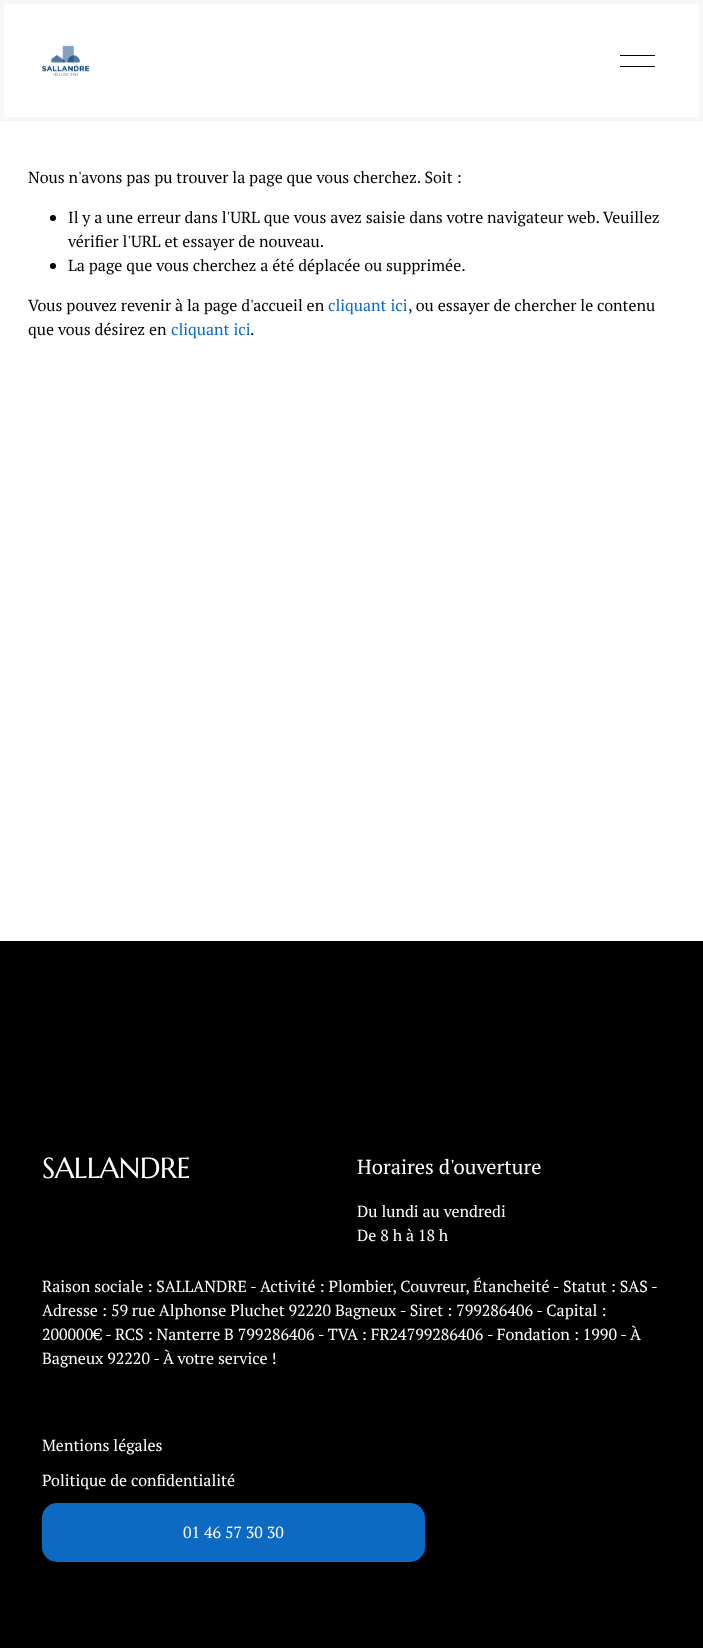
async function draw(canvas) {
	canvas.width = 703;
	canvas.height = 1651;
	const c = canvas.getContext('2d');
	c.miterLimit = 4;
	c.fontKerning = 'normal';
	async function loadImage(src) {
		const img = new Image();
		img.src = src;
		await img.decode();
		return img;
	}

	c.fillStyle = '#fff';
	c.fillRect(0, 0, 703, 1651);
	c.strokeStyle = '#f7f7f7';
	c.lineWidth = 4;
	c.strokeRect(2, 2, 699, 117);
	c.drawImage(await loadImage('img1.png'), 42, 45, 47, 31);
	c.fillStyle = '#000';
	c.fillRect(620, 55, 35, 1);
	c.fillRect(620, 66, 35, 1);
	c.font = '16px PT Serif';
	c.fillText('Nous n\'avons pas pu trouver la page que vous cherchez. Soit :', 28, 183);
	c.beginPath();
	c.arc(53, 218, 3, 0, 2 * Math.PI);
	c.fill();
	c.fillText('Il y a une erreur dans l\'URL que vous avez saisie dans votre navigateur web. Veuillez', 68, 223);
	c.fillText('vérifier l\'URL et essayer de nouveau.', 68, 247);
	c.beginPath();
	c.arc(53, 266, 3, 0, 2 * Math.PI);
	c.fill();
	c.fillText('La page que vous cherchez a été déplacée ou supprimée.', 68, 271);
	c.fillText('Vous pouvez revenir à la page d\'accueil en', 28, 311);
	c.fillStyle = '#0c6ac2';
	c.fillText('cliquant ici', 328, 311);
	c.fillStyle = '#000';
	c.fillText(', ou essayer de chercher le contenu', 408, 311);
	c.fillText('que vous désirez en', 28, 335);
	c.fillStyle = '#0c6ac2';
	c.fillText('cliquant ici', 171, 335);
	c.fillStyle = '#000';
	c.fillText('.', 250, 335);
	c.fillRect(0, 941, 703, 707);
	c.letterSpacing = '-0.5px';
	c.font = '29px Marcellus';
	c.fillStyle = '#fff';
	c.fillText('SALLANDRE', 42, 1178);
	c.letterSpacing = '0px';
	c.font = '20.25px PT Serif';
	c.fillText('Horaires d\'ouverture', 357, 1174);
	c.font = '16px PT Serif';
	for (const [text, x, y] of [
		['Du lundi au vendredi', 357, 1217],
		['De 8 h à 18 h', 357, 1241],
		['Raison sociale : SALLANDRE -', 42, 1292],
		['Activité : Plombier, Couvreur, Étancheité -', 260, 1292],
		['Statut : SAS -', 563, 1292],
		['Adresse : 59 rue Alphonse Pluchet 92220 Bagneux - Siret : 799286406 - Capital :', 42, 1316],
		['200000€ - RCS : Nanterre B 799286406 - TVA : FR24799286406 - Fondation : 1990 - À', 42, 1340],
		['Bagneux 92220 - À votre service !', 42, 1364],
		['Mentions légales', 42, 1451],
		['Politique de confidentialité', 42, 1486],
	]) {
		c.fillText(text, x, y);
	}
	c.fillStyle = '#0c6ac2';
	c.beginPath();
	c.roundRect(42, 1503, 383, 59, 15);
	c.fill();
	c.fillStyle = '#fff';
	c.fillText('01 46 57 30 30', 183, 1538);
}

draw(document.querySelector('canvas'));
